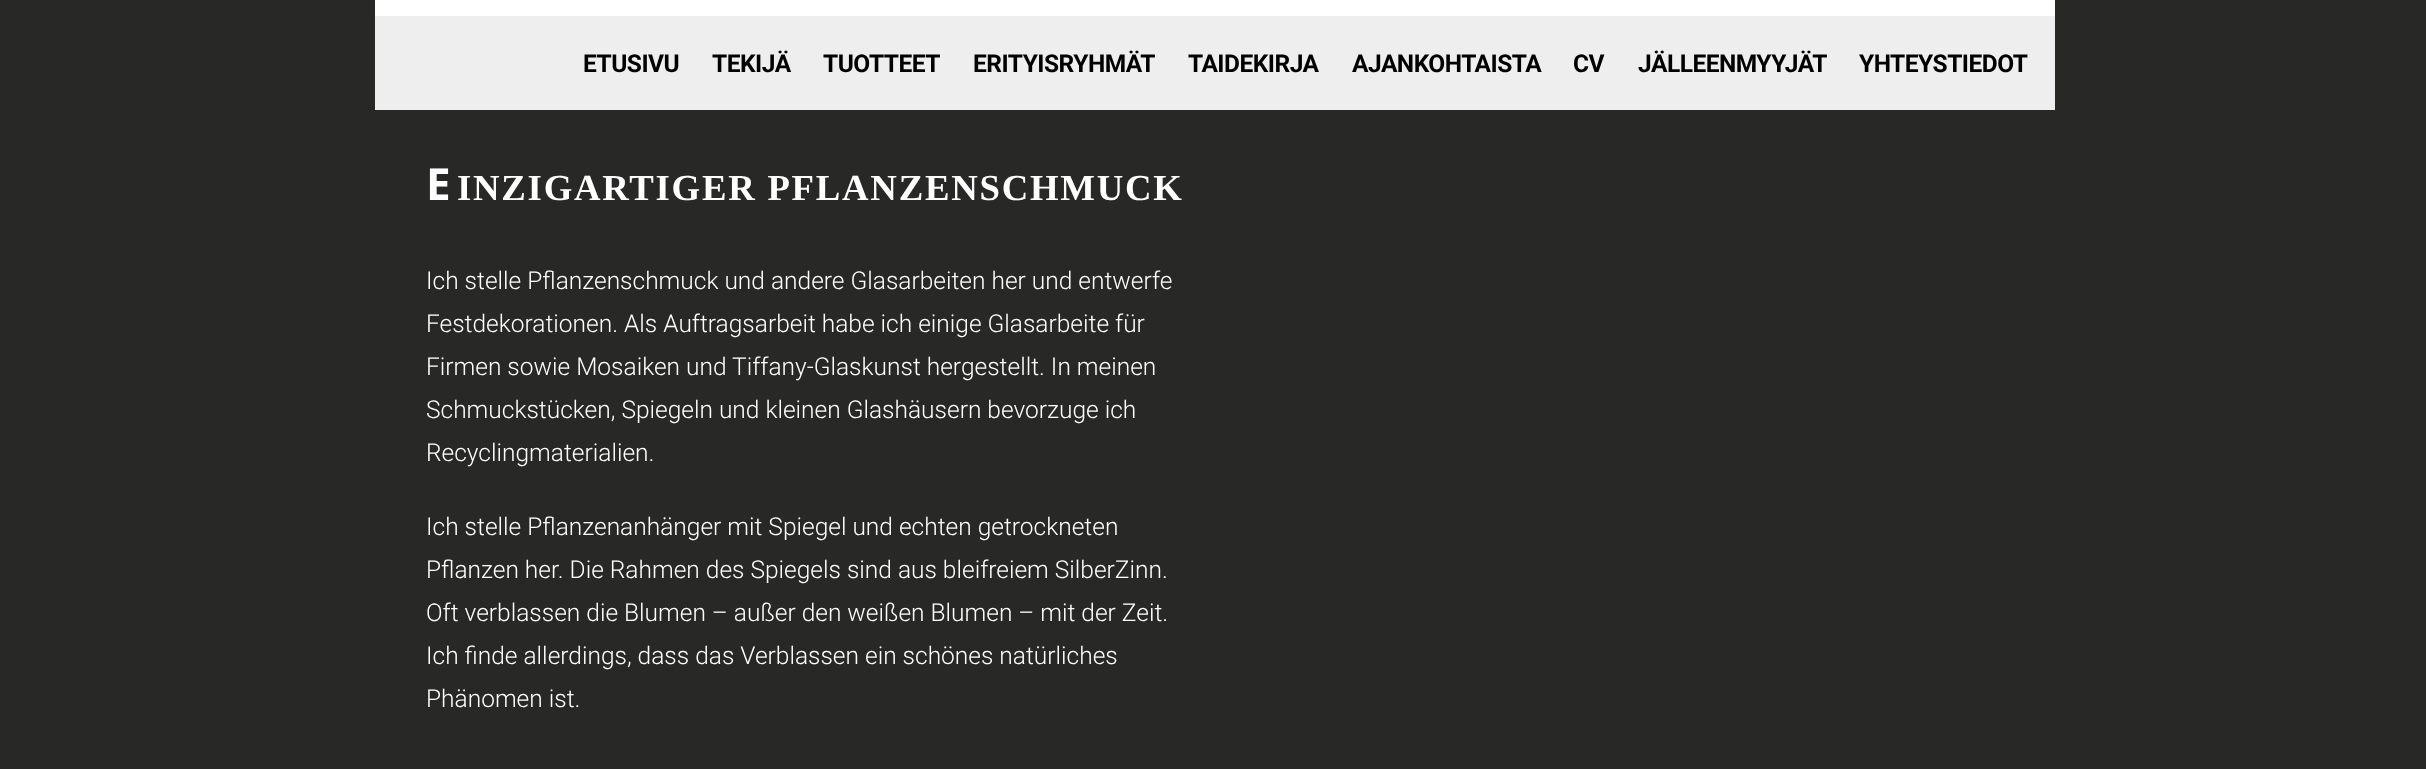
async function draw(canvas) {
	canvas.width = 2426;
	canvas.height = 769;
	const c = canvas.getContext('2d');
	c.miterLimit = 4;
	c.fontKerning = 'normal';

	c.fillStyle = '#282827';
	c.fillRect(0, 0, 2426, 769);
	c.fillStyle = '#fff';
	c.fillRect(375, 0, 1680, 16);
	c.fillStyle = '#eee';
	c.fillRect(375, 16, 1680, 94);
	c.letterSpacing = '-0.5px';
	c.font = 'bold 24.5px Roboto';
	c.fillStyle = '#000';
	for (const [text, x, y] of [
		['ETUSIVU', 583, 72],
		['TEKIJÄ', 712, 72],
		['TUOTTEET', 823, 72],
		['ERITYISRYHMÄT', 973, 72],
		['TAIDEKIRJA', 1188, 72],
		['AJANKOHTAISTA', 1352, 72],
		['CV', 1573, 72],
		['JÄLLEENMYYJÄT', 1638, 72],
		['YHTEYSTIEDOT', 1859, 72],
	]) {
		c.fillText(text, x, y);
	}
	c.letterSpacing = '1.75px';
	c.font = 'bold 44px Noto Sans';
	c.fillStyle = '#fff';
	c.fillText('E', 426, 200);
	c.font = 'bold 36.75px Liberation Serif';
	c.fillText('INZIGARTIGER PFLANZENSCHMUCK', 457, 200);
	c.letterSpacing = '0px';
	c.font = '300 24.5px Roboto';
	for (const [text, x, y] of [
		['Ich stelle Pflanzenschmuck und andere Glasarbeiten her und entwerfe', 426, 289],
		['Festdekorationen. Als Auftragsarbeit habe ich einige Glasarbeite für', 426, 332],
		['Firmen sowie Mosaiken und Tiffany-Glaskunst hergestellt. In meinen', 426, 375],
		['Schmuckstücken, Spiegeln und kleinen Glashäusern bevorzuge ich', 426, 418],
		['Recyclingmaterialien.', 426, 461],
		['Ich stelle Pflanzenanhänger mit Spiegel und echten getrockneten', 426, 535],
		['Pflanzen her. Die Rahmen des Spiegels sind aus bleifreiem SilberZinn.', 426, 578],
		['Oft verblassen die Blumen – außer den weißen Blumen – mit der Zeit.', 426, 621],
		['Ich finde allerdings, dass das Verblassen ein schönes natürliches', 426, 664],
		['Phänomen ist.', 426, 707],
	]) {
		c.fillText(text, x, y);
	}
}

draw(document.querySelector('canvas'));
